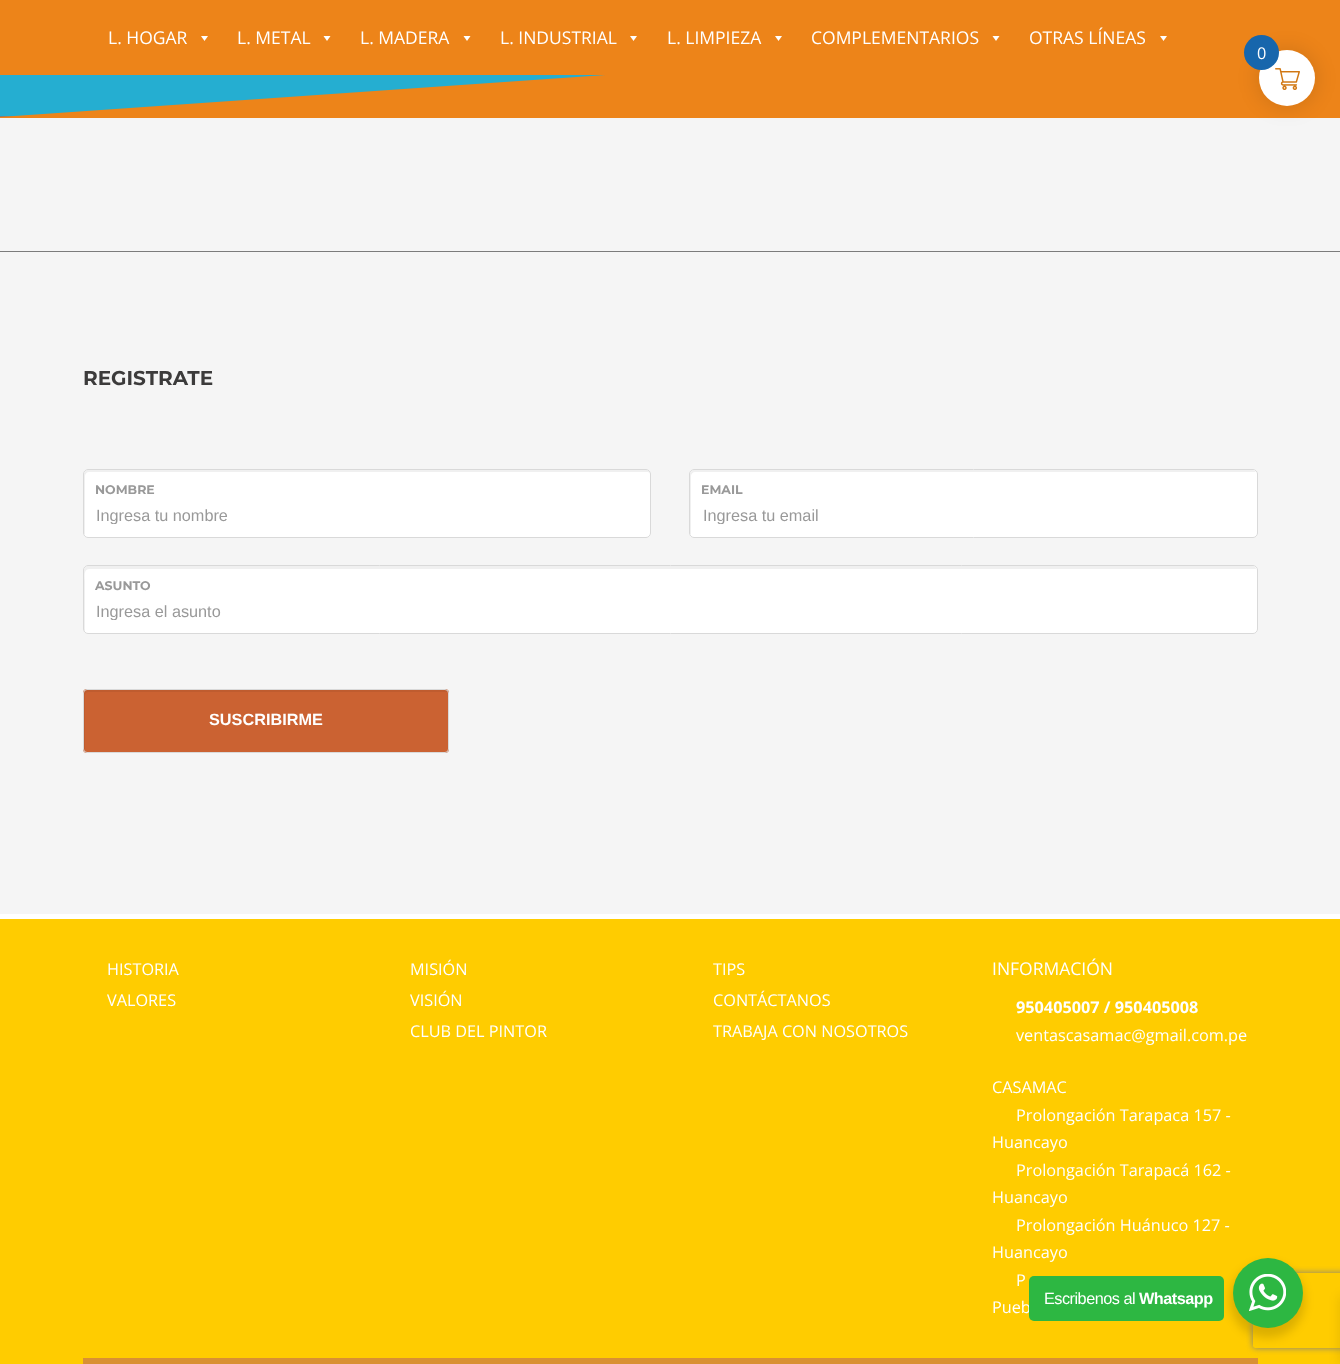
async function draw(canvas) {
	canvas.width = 1340;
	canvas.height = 1364;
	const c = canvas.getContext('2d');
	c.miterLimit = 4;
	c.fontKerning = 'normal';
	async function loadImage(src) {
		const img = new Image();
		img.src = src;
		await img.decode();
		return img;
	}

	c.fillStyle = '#f5f5f5';
	c.fillRect(0, 0, 1340, 1364);
	c.fillStyle = '#25aed1';
	c.fillRect(0, 75, 605, 41);
	c.fillStyle = '#7c7c7c';
	c.fillRect(0, 116, 15, 1);
	c.save();
	c.beginPath();
	c.rect(0, 24, 1340, 94);
	c.clip();
	c.fillStyle = '#ed8419';
	c.beginPath();
	c.moveTo(0, 117);
	c.lineTo(1340, 24);
	c.lineTo(1340, 118);
	c.lineTo(0, 211);
	c.closePath();
	c.fill();
	c.restore();
	c.fillStyle = '#ed8419';
	c.fillRect(0, 0, 1340, 75);
	c.font = '17.5px Open Sans';
	c.fillStyle = '#fff';
	c.fillText('L. HOGAR', 108, 44);
	c.beginPath();
	c.moveTo(208, 36);
	c.lineTo(204.5, 41);
	c.lineTo(201, 36);
	c.closePath();
	c.fill();
	c.fillText('L. METAL', 237, 44);
	c.beginPath();
	c.moveTo(330.5, 36);
	c.lineTo(327, 41);
	c.lineTo(323.5, 36);
	c.closePath();
	c.fill();
	c.fillText('L. MADERA', 360, 44);
	c.beginPath();
	c.moveTo(470.5, 36);
	c.lineTo(467, 41);
	c.lineTo(463.5, 36);
	c.closePath();
	c.fill();
	c.fillText('L. INDUSTRIAL', 500, 44);
	c.beginPath();
	c.moveTo(637, 36);
	c.lineTo(633.5, 41);
	c.lineTo(630, 36);
	c.closePath();
	c.fill();
	c.fillText('L. LIMPIEZA', 667, 44);
	c.beginPath();
	c.moveTo(782, 36);
	c.lineTo(778.5, 41);
	c.lineTo(775, 36);
	c.closePath();
	c.fill();
	c.fillText('COMPLEMENTARIOS', 811, 44);
	c.beginPath();
	c.moveTo(999.5, 36);
	c.lineTo(996, 41);
	c.lineTo(992.5, 36);
	c.closePath();
	c.fill();
	c.fillText('OTRAS LÍNEAS', 1029, 44);
	c.beginPath();
	c.moveTo(1167, 36);
	c.lineTo(1163.5, 41);
	c.lineTo(1160, 36);
	c.closePath();
	c.fill();
	c.fillStyle = '#7c7c7c';
	c.fillRect(0, 251, 1340, 1);
	c.font = 'bold 20px Montserrat';
	c.fillStyle = '#3c3b3b';
	c.fillText('REGISTRATE', 83, 385);
	c.fillStyle = '#fff';
	c.beginPath();
	c.roundRect(83, 469, 568, 69, 5);
	c.fill();
	c.fillStyle = '#f0f0f0';
	c.beginPath();
	c.moveTo(89, 472);
	c.lineTo(648, 472);
	c.lineTo(650, 473);
	c.bezierCurveTo(649, 471, 648, 470, 646, 470);
	c.lineTo(88, 470);
	c.bezierCurveTo(86, 470, 84, 472, 84, 474);
	c.lineTo(84, 532);
	c.bezierCurveTo(84, 533, 84, 534, 85, 535);
	c.lineTo(85, 476);
	c.bezierCurveTo(85, 474, 87, 472, 89, 472);
	c.closePath();
	c.fill();
	c.beginPath();
	c.roundRect(83.5, 469.5, 567, 68, 4.5);
	c.strokeStyle = '#d9d9d9';
	c.stroke();
	c.font = 'bold 12.5px Montserrat';
	c.fillStyle = '#999';
	c.fillText('NOMBRE', 95, 494);
	c.save();
	c.beginPath();
	c.rect(96, 505, 534, 19);
	c.clip();
	c.font = '16.25px Liberation Sans';
	c.fillText('Ingresa tu nombre', 96, 521);
	c.restore();
	c.fillStyle = '#fff';
	c.beginPath();
	c.roundRect(689, 469, 569, 69, 5);
	c.fill();
	c.fillStyle = '#f0f0f0';
	c.beginPath();
	c.moveTo(695, 472);
	c.lineTo(1254, 472);
	c.lineTo(1256, 472);
	c.bezierCurveTo(1255, 471, 1254, 470, 1252, 470);
	c.lineTo(694, 470);
	c.bezierCurveTo(692, 470, 690, 472, 690, 474);
	c.lineTo(690, 532);
	c.bezierCurveTo(690, 533, 690, 534, 691, 535);
	c.lineTo(691, 476);
	c.bezierCurveTo(691, 474, 693, 472, 695, 472);
	c.closePath();
	c.fill();
	c.beginPath();
	c.roundRect(689.5, 469.5, 568, 68, 4.5);
	c.stroke();
	c.fillStyle = '#999';
	c.fillText('EMAIL', 701, 494);
	c.save();
	c.beginPath();
	c.rect(703, 505, 533, 19);
	c.clip();
	c.font = '16.25px Liberation Sans';
	c.fillText('Ingresa tu email', 703, 521);
	c.restore();
	c.fillStyle = '#fff';
	c.beginPath();
	c.roundRect(83, 565, 1175, 69, 5);
	c.fill();
	c.fillStyle = '#f0f0f0';
	c.beginPath();
	c.moveTo(89, 569);
	c.lineTo(1256, 569);
	c.bezierCurveTo(1256, 567, 1254, 566, 1252, 566);
	c.lineTo(88, 566);
	c.bezierCurveTo(86, 566, 84, 568, 84, 570);
	c.lineTo(84, 629);
	c.bezierCurveTo(84, 630, 84, 631, 85, 632);
	c.lineTo(85, 582);
	c.bezierCurveTo(85, 578, 83, 569, 89, 569);
	c.closePath();
	c.fill();
	c.beginPath();
	c.roundRect(83.5, 565.5, 1174, 68, 4.5);
	c.stroke();
	c.fillStyle = '#999';
	c.fillText('ASUNTO', 95, 590);
	c.save();
	c.beginPath();
	c.rect(96, 601, 1140, 19);
	c.clip();
	c.font = '16.25px Liberation Sans';
	c.fillText('Ingresa el asunto', 96, 617);
	c.restore();
	c.fillStyle = '#cb6232';
	c.beginPath();
	c.roundRect(83, 689, 366, 64, 4);
	c.fill();
	c.fillStyle = '#bf5c2f';
	c.beginPath();
	c.moveTo(88, 692);
	c.lineTo(446, 692);
	c.lineTo(448, 692);
	c.bezierCurveTo(448, 691, 447, 690, 446, 690);
	c.lineTo(86, 690);
	c.bezierCurveTo(85, 690, 84, 691, 84, 692);
	c.lineTo(84, 748);
	c.bezierCurveTo(84, 749, 84, 750, 85, 751);
	c.lineTo(85, 695);
	c.bezierCurveTo(85, 694, 86, 692, 88, 692);
	c.closePath();
	c.fill();
	c.beginPath();
	c.roundRect(83.5, 689.5, 365, 63, 3.5);
	c.stroke();
	c.font = 'bold 16.25px Liberation Sans';
	c.fillStyle = '#fff';
	c.fillText('SUSCRIBIRME', 209, 725);
	c.fillStyle = '#fc0';
	c.fillRect(0, 919, 1340, 445);
	c.fillStyle = '#fff';
	c.fillRect(0, 914, 1340, 5);
	c.font = '16.25px Open Sans';
	for (const [text, x, y] of [
		['HISTORIA', 107, 975],
		['VALORES', 107, 1006],
		['MISIÓN', 410, 975],
		['VISIÓN', 410, 1006],
		['CLUB DEL PINTOR', 410, 1037],
		['TIPS', 713, 975],
		['CONTÁCTANOS', 713, 1006],
		['TRABAJA CON NOSOTROS', 713, 1037],
	]) {
		c.fillText(text, x, y);
	}
	c.font = '17.5px Open Sans';
	c.fillText('INFORMACIÓN', 992, 975);
	c.font = 'bold 16.25px Open Sans';
	c.fillText('950405007 / 950405008', 1016, 1013);
	c.font = '16.25px Open Sans';
	for (const [text, x, y] of [
		['ventascasamac@gmail.com.pe', 1016, 1041],
		['CASAMAC', 992, 1093],
		['Prolongación Tarapaca 157 -', 1016, 1121],
		['Huancayo', 992, 1148],
		['Prolongación Tarapacá 162 -', 1016, 1176],
		['Huancayo', 992, 1203],
		['Prolongación Huánuco 127 -', 1016, 1231],
		['Huancayo', 992, 1258],
		['P', 1016, 1286],
		['Pueb', 992, 1313],
	]) {
		c.fillText(text, x, y);
	}
	c.fillStyle = '#d99033';
	c.fillRect(83, 1358, 1175, 6);
	c.fillStyle = '#0000001a';
	c.filter = 'blur(9.5px)';
	c.beginPath();
	c.roundRect(1256, 48, 62, 61, 30.5);
	c.fill();
	c.filter = 'none';
	c.fillStyle = '#fff';
	c.beginPath();
	c.arc(1287, 78, 28, 0, 2 * Math.PI);
	c.fill();
	c.drawImage(await loadImage('img1.png'), 1275, 68, 25, 22);
	c.fillStyle = '#1766ac';
	c.beginPath();
	c.arc(1261.5, 52.5, 17.5, 0, 2 * Math.PI);
	c.fill();
	c.fillStyle = '#fff';
	c.fillText('0', 1257, 59);
	c.fillStyle = '#0000001a';
	c.filter = 'blur(6px)';
	c.beginPath();
	c.rect(1340, 1296, 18, 68);
	c.fill();
	c.filter = 'none';
	c.fillStyle = '#00000024';
	c.filter = 'blur(5px)';
	c.beginPath();
	c.roundRect(1230, 1263, 75, 75, 37.5);
	c.fill();
	c.filter = 'none';
	c.fillStyle = '#2db742';
	c.beginPath();
	c.roundRect(1029, 1276, 195, 45, 5);
	c.fill();
	c.letterSpacing = '-0.5px';
	c.font = '16.25px Liberation Sans';
	c.fillStyle = '#fff';
	c.fillText('Escribenos al', 1044, 1304);
	c.font = 'bold 16.25px Liberation Sans';
	c.fillText('Whatsapp', 1139, 1304);
	c.save();
	c.beginPath();
	c.moveTo(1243, 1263);
	c.lineTo(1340, 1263);
	c.lineTo(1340, 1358);
	c.lineTo(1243, 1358);
	c.closePath();
	c.moveTo(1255.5, 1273);
	c.lineTo(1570.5, 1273);
	c.bezierCurveTo(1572, 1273, 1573, 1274, 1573, 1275.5);
	c.lineTo(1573, 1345.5);
	c.bezierCurveTo(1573, 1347, 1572, 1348, 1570.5, 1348);
	c.lineTo(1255.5, 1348);
	c.bezierCurveTo(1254, 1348, 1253, 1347, 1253, 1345.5);
	c.lineTo(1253, 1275.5);
	c.bezierCurveTo(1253, 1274, 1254, 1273, 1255.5, 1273);
	c.closePath();
	c.clip('evenodd');
	c.fillStyle = '#808080';
	c.filter = 'blur(3px)';
	c.beginPath();
	c.roundRect(1253, 1273, 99, 75, 2.5);
	c.fill();
	c.filter = 'none';
	c.restore();
	c.fillStyle = '#2db742';
	c.beginPath();
	c.arc(1268, 1293, 35, 0, 2 * Math.PI);
	c.fill();
	c.drawImage(await loadImage('img2.png'), 1249, 1274, 37, 37);
}

draw(document.querySelector('canvas'));
